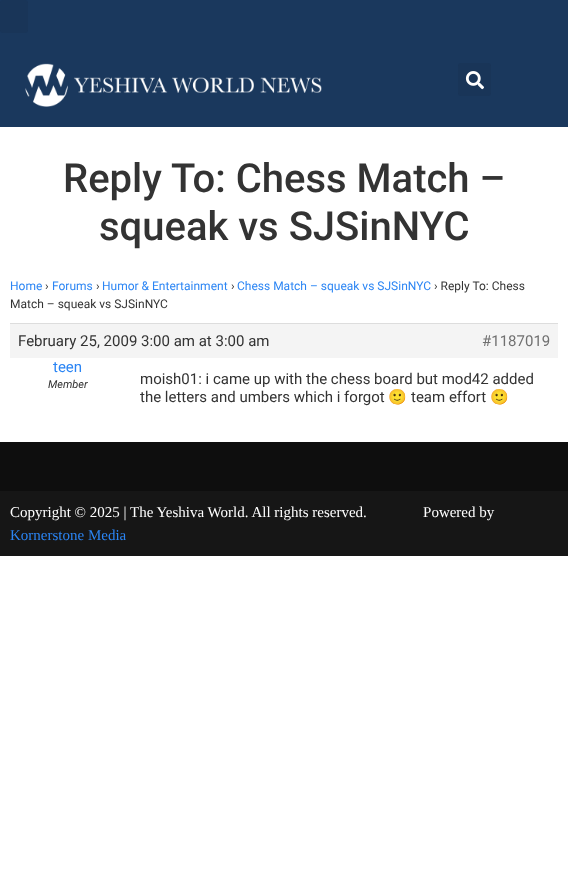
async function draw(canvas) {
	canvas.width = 568;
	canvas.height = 894;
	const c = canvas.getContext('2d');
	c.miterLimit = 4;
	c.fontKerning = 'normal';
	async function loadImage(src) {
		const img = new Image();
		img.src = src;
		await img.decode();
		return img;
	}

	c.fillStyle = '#fff';
	c.fillRect(0, 0, 568, 894);
	c.fillStyle = '#1a385d';
	c.fillRect(0, 0, 568, 127);
	c.fillStyle = '#193558';
	c.beginPath();
	c.roundRect(0, 0, 28, 33, 3);
	c.fill();
	c.drawImage(await loadImage('img1.png'), 25, 63, 297, 44);
	c.beginPath();
	c.roundRect(458, 63, 33, 33, 3);
	c.fill();
	c.drawImage(await loadImage('img2.png'), 465, 71, 19, 19);
	c.font = '500 40px Roboto';
	c.fillStyle = '#333';
	c.fillText('Reply To: Chess Match –', 63, 192);
	c.fillText('squeak vs SJSinNYC', 99, 240);
	c.font = '12px Roboto';
	c.fillStyle = '#2b85f4';
	c.fillText('Home', 10, 290);
	c.fillStyle = '#333';
	c.fillText('›', 45, 290);
	c.fillStyle = '#2b85f4';
	c.fillText('Forums', 52, 290);
	c.fillStyle = '#333';
	c.fillText('›', 96, 290);
	c.fillStyle = '#2b85f4';
	c.fillText('Humor & Entertainment', 102, 290);
	c.fillStyle = '#333';
	c.fillText('›', 231, 290);
	c.fillStyle = '#2b85f4';
	c.fillText('Chess Match – squeak vs SJSinNYC', 237, 290);
	c.fillStyle = '#333';
	c.fillText('› Reply To: Chess', 434, 290);
	c.fillText('Match – squeak vs SJSinNYC', 10, 308);
	c.fillStyle = '#f4f4f4';
	c.fillRect(10, 324, 548, 34);
	c.fillStyle = '#ddd';
	c.fillRect(10, 323, 548, 1);
	c.font = '15px Roboto';
	c.fillStyle = '#333';
	c.fillText('February 25, 2009 3:00 am at 3:00 am', 18, 346);
	c.fillStyle = '#707070';
	c.fillText('#1187019', 482, 346);
	c.fillStyle = '#2b85f4';
	c.fillText('teen', 53, 372);
	c.font = 'italic 11px Roboto';
	c.fillStyle = '#333';
	c.fillText('Member', 48, 388);
	c.font = '15px Roboto';
	c.fillText('moish01: i came up with the chess board but mod42 added', 140, 384);
	c.fillText('the letters and umbers which i forgot', 140, 402);
	c.font = '15px Noto Color Emoji';
	c.fillText('🙂', 388, 402);
	c.font = '15px Roboto';
	c.fillText('team effort', 411, 402);
	c.font = '15px Noto Color Emoji';
	c.fillText('🙂', 490, 402);
	c.fillStyle = '#0e0e0e';
	c.fillRect(0, 442, 568, 49);
	c.fillStyle = '#161616';
	c.fillRect(0, 491, 568, 65);
	c.font = '15px Liberation Serif';
	c.fillStyle = '#fff';
	c.fillText('Copyright © 2025 | The Yeshiva World. All rights reserved.               Powered by', 10, 517);
	c.fillStyle = '#2b85f4';
	c.fillText('Kornerstone Media', 10, 540);
}

draw(document.querySelector('canvas'));
